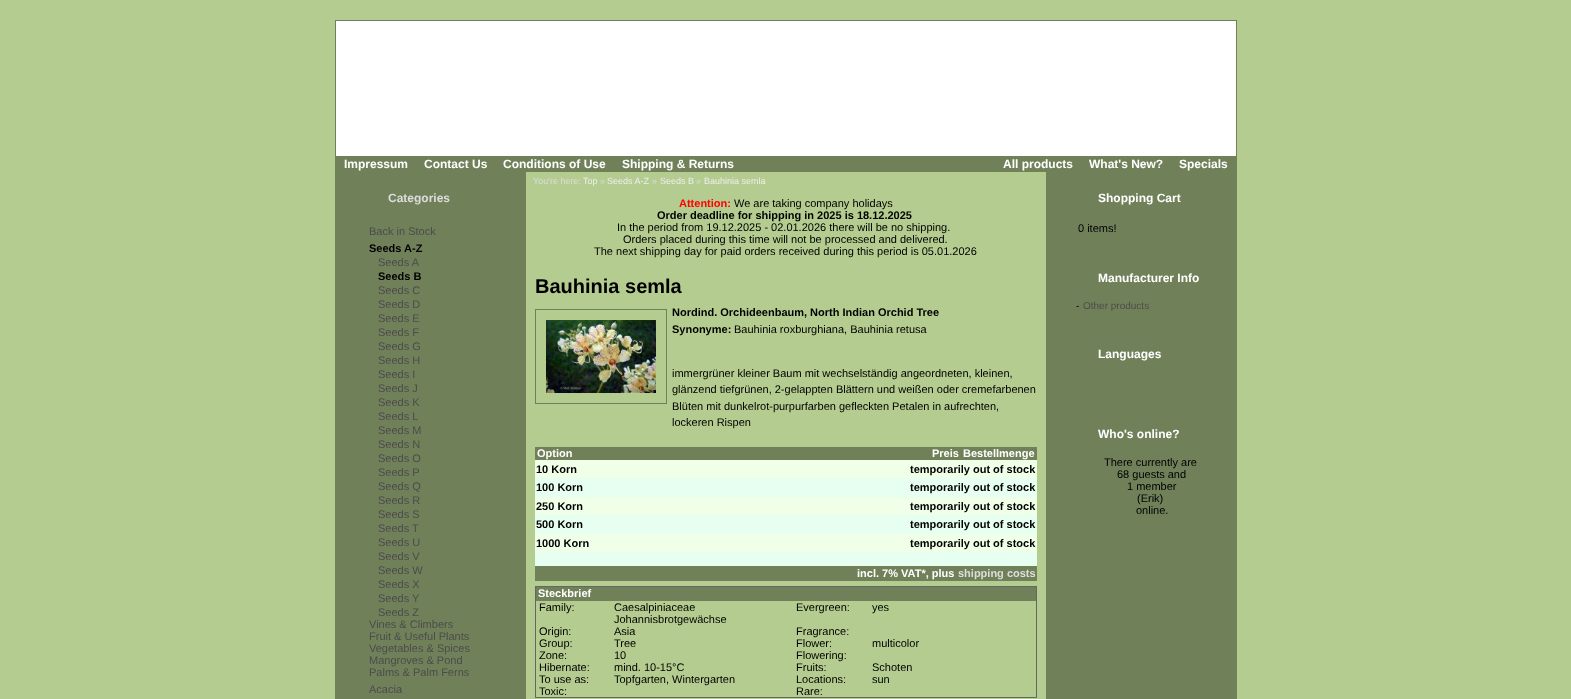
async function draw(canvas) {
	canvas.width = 1571;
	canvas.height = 699;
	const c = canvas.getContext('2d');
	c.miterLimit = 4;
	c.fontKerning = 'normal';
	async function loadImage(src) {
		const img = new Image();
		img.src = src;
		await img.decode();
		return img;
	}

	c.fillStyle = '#b4cc8f';
	c.fillRect(0, 0, 1571, 699);
	c.fillStyle = '#fff';
	c.fillRect(336, 21, 900, 135);
	c.strokeStyle = '#708059';
	c.strokeRect(335.5, 20.5, 901, 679);
	c.fillStyle = '#708059';
	c.fillRect(336, 156, 900, 16);
	c.font = 'bold 12px Liberation Sans';
	c.fillStyle = '#fff';
	for (const [text, x, y] of [
		['Impressum', 344, 168],
		['Contact Us', 424, 168],
		['Conditions of Use', 503, 168],
		['Shipping & Returns', 622, 168],
		['All products', 1003, 168],
		['What\'s New?', 1089, 168],
		['Specials', 1179, 168],
	]) {
		c.fillText(text, x, y);
	}
	c.fillStyle = '#708059';
	c.fillRect(336, 172, 190, 527);
	c.fillStyle = '#ddd';
	c.fillText('Categories', 388, 202);
	c.font = '11px Liberation Sans';
	c.fillStyle = '#4c4c4c';
	c.fillText('Back in Stock', 369, 235);
	c.font = 'bold 11px Liberation Sans';
	c.fillStyle = '#000';
	c.fillText('Seeds A-Z', 369, 252);
	c.font = '11px Liberation Sans';
	c.fillStyle = '#4c4c4c';
	c.fillText('Seeds A', 378, 266);
	c.font = 'bold 11px Liberation Sans';
	c.fillStyle = '#000';
	c.fillText('Seeds B', 378, 280);
	c.font = '11px Liberation Sans';
	c.fillStyle = '#4c4c4c';
	for (const [text, x, y] of [
		['Seeds C', 378, 294],
		['Seeds D', 378, 308],
		['Seeds E', 378, 322],
		['Seeds F', 378, 336],
		['Seeds G', 378, 350],
		['Seeds H', 378, 364],
		['Seeds I', 378, 378],
		['Seeds J', 378, 392],
		['Seeds K', 378, 406],
		['Seeds L', 378, 420],
		['Seeds M', 378, 434],
		['Seeds N', 378, 448],
		['Seeds O', 378, 462],
		['Seeds P', 378, 476],
		['Seeds Q', 378, 490],
		['Seeds R', 378, 504],
		['Seeds S', 378, 518],
		['Seeds T', 378, 532],
		['Seeds U', 378, 546],
		['Seeds V', 378, 560],
		['Seeds W', 378, 574],
		['Seeds X', 378, 588],
		['Seeds Y', 378, 602],
		['Seeds Z', 378, 616],
		['Vines & Climbers', 369, 628],
		['Fruit & Useful Plants', 369, 640],
		['Vegetables & Spices', 369, 652],
		['Mangroves & Pond', 369, 664],
		['Palms & Palm Ferns', 369, 676],
		['Acacia', 369, 693],
	]) {
		c.fillText(text, x, y);
	}
	c.font = '9px Liberation Sans';
	c.fillStyle = '#ddd';
	c.fillText('You\'re here:', 533, 184);
	c.fillStyle = '#eee';
	c.fillText('Top', 583, 184);
	c.fillStyle = '#ddd';
	c.fillText('»', 600, 184);
	c.fillStyle = '#eee';
	c.fillText('Seeds A-Z', 607, 184);
	c.fillStyle = '#ddd';
	c.fillText('»', 652, 184);
	c.fillStyle = '#eee';
	c.fillText('Seeds B', 660, 184);
	c.fillStyle = '#ddd';
	c.fillText('»', 696, 184);
	c.fillStyle = '#eee';
	c.fillText('Bauhinia semla', 704, 184);
	c.font = 'bold 11px Liberation Sans';
	c.fillStyle = '#f00';
	c.fillText('Attention:', 679, 207);
	c.font = '11px Liberation Sans';
	c.fillStyle = '#000';
	c.fillText('We are taking company holidays', 734, 207);
	c.font = 'bold 11px Liberation Sans';
	c.fillText('Order deadline for shipping in 2025 is 18.12.2025', 657, 219);
	c.font = '11px Liberation Sans';
	for (const [text, x, y] of [
		['In the period from 19.12.2025 - 02.01.2026 there will be no shipping.', 617, 231],
		['Orders placed during this time will not be processed and delivered.', 623, 243],
		['The next shipping day for paid orders received during this period is 05.01.2026', 594, 255],
	]) {
		c.fillText(text, x, y);
	}
	c.font = 'bold 20px Liberation Sans';
	c.fillText('Bauhinia semla', 535, 293);
	c.strokeRect(535.5, 309.5, 131, 94);
	c.drawImage(await loadImage('img1.png'), 546, 320, 110, 73);
	c.font = 'bold 11px Liberation Sans';
	c.fillText('Nordind. Orchideenbaum, North Indian Orchid Tree', 672, 316);
	c.fillText('Synonyme:', 672, 333);
	c.font = '11px Liberation Sans';
	for (const [text, x, y] of [
		['Bauhinia roxburghiana, Bauhinia retusa', 734, 333],
		['immergrüner kleiner Baum mit wechselständig angeordneten, kleinen,', 672, 377],
		['glänzend tiefgrünen, 2-gelappten Blättern und weißen oder cremefarbenen', 672, 393],
		['Blüten mit dunkelrot-purpurfarben gefleckten Petalen in aufrechten,', 672, 410],
		['lockeren Rispen', 672, 426],
	]) {
		c.fillText(text, x, y);
	}
	c.fillStyle = '#708059';
	c.fillRect(535, 447, 502, 13);
	c.font = 'bold 11px Liberation Sans';
	c.fillStyle = '#fff';
	for (const [text, x, y] of [
		['Option', 537, 457],
		['Preis', 932, 457],
		['Bestellmenge', 963, 457],
	]) {
		c.fillText(text, x, y);
	}
	c.fillStyle = '#f0ffe7';
	c.fillRect(535, 460, 502, 18);
	c.fillStyle = '#000';
	c.fillText('10 Korn', 536, 473);
	c.fillText('temporarily out of stock', 910, 473);
	c.fillStyle = '#e7fff0';
	c.fillRect(535, 478, 502, 19);
	c.fillStyle = '#000';
	c.fillText('100 Korn', 536, 491);
	c.fillText('temporarily out of stock', 910, 491);
	c.fillStyle = '#f0ffe7';
	c.fillRect(535, 497, 502, 18);
	c.fillStyle = '#000';
	c.fillText('250 Korn', 536, 510);
	c.fillText('temporarily out of stock', 910, 510);
	c.fillStyle = '#e7fff0';
	c.fillRect(535, 515, 502, 19);
	c.fillStyle = '#000';
	c.fillText('500 Korn', 536, 528);
	c.fillText('temporarily out of stock', 910, 528);
	c.fillStyle = '#f0ffe7';
	c.fillRect(535, 534, 502, 18);
	c.fillStyle = '#000';
	c.fillText('1000 Korn', 536, 547);
	c.fillText('temporarily out of stock', 910, 547);
	c.fillStyle = '#e7fff0';
	c.fillRect(535, 552, 502, 14);
	c.fillStyle = '#708059';
	c.fillRect(535, 566, 502, 15);
	c.fillStyle = '#fff';
	c.fillText('incl. 7% VAT*, plus', 857, 577);
	c.fillStyle = '#ddd';
	c.fillText('shipping costs', 958, 577);
	c.strokeStyle = '#666';
	c.strokeRect(535.5, 586.5, 501, 111);
	c.fillStyle = '#708059';
	c.fillRect(536, 587, 500, 14);
	c.fillStyle = '#fff';
	c.fillText('Steckbrief', 538, 597);
	c.font = '11px Liberation Sans';
	c.fillStyle = '#000';
	for (const [text, x, y] of [
		['Family:', 539, 611],
		['Caesalpiniaceae', 614, 611],
		['Johannisbrotgewächse', 614, 623],
		['Evergreen:', 796, 611],
		['yes', 872, 611],
		['Origin:', 539, 635],
		['Asia', 614, 635],
		['Fragrance:', 796, 635],
		['Group:', 539, 647],
		['Tree', 614, 647],
		['Flower:', 796, 647],
		['multicolor', 872, 647],
		['Zone:', 539, 659],
		['10', 614, 659],
		['Flowering:', 796, 659],
		['Hibernate:', 539, 671],
		['mind. 10-15°C', 614, 671],
		['Fruits:', 796, 671],
		['Schoten', 872, 671],
		['To use as:', 539, 683],
		['Topfgarten, Wintergarten', 614, 683],
		['Locations:', 796, 683],
		['sun', 872, 683],
		['Toxic:', 539, 695],
		['Rare:', 796, 695],
	]) {
		c.fillText(text, x, y);
	}
	c.fillStyle = '#708059';
	c.fillRect(1046, 172, 190, 527);
	c.font = 'bold 12px Liberation Sans';
	c.fillStyle = '#fff';
	c.fillText('Shopping Cart', 1098, 202);
	c.font = '11px Liberation Sans';
	c.fillStyle = '#000';
	c.fillText('0 items!', 1078, 232);
	c.font = 'bold 12px Liberation Sans';
	c.fillStyle = '#fff';
	c.fillText('Manufacturer Info', 1098, 282);
	c.font = '10px Liberation Sans';
	c.fillStyle = '#000';
	c.fillText('-', 1076, 309);
	c.fillStyle = '#4c4c4c';
	c.fillText('Other products', 1083, 309);
	c.font = 'bold 12px Liberation Sans';
	c.fillStyle = '#fff';
	c.fillText('Languages', 1098, 358);
	c.fillText('Who\'s online?', 1098, 438);
	c.font = '11px Liberation Sans';
	c.fillStyle = '#000';
	for (const [text, x, y] of [
		['There currently are', 1104, 466],
		['68 guests and', 1117, 478],
		['1 member', 1127, 490],
		['(Erik)', 1137, 502],
		['online.', 1136, 514],
	]) {
		c.fillText(text, x, y);
	}
}

draw(document.querySelector('canvas'));
